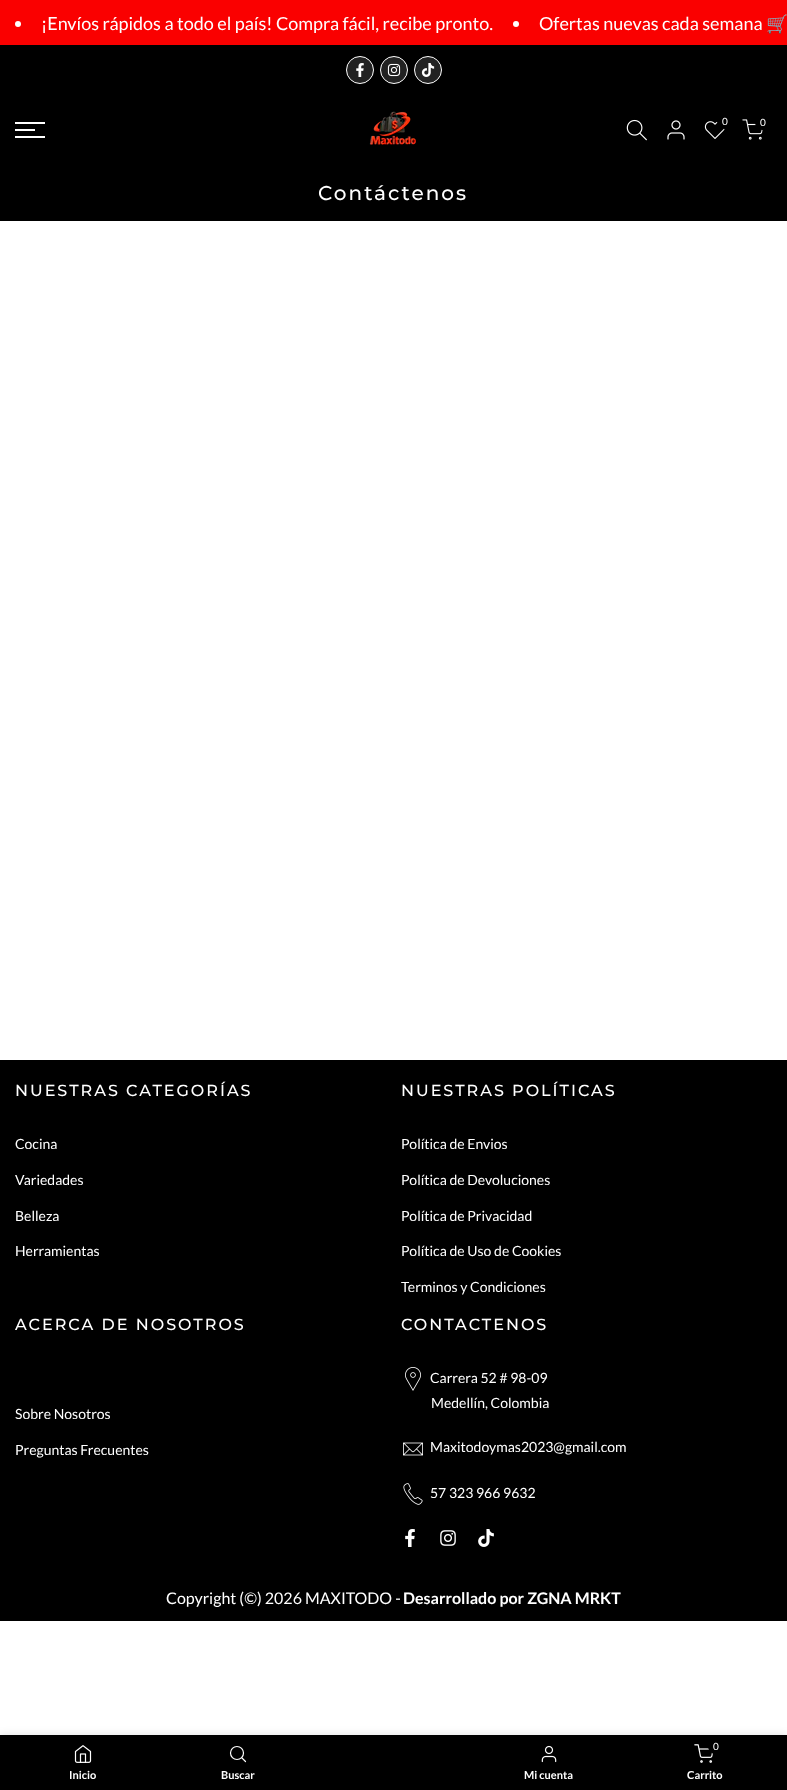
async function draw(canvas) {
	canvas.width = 787;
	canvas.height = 1790;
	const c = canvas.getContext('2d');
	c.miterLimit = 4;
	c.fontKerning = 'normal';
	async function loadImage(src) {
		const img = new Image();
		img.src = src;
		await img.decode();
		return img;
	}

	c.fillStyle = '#fff';
	c.fillRect(0, 0, 787, 1790);
	c.fillStyle = '#fa0000';
	c.fillRect(0, 0, 787, 45);
	c.fillStyle = '#fff';
	c.beginPath();
	c.arc(18, 24, 3, 0, 2 * Math.PI);
	c.fill();
	c.font = '18px Lato';
	c.fillText('¡Envíos rápidos a todo el país! Compra fácil, recibe pronto.', 41, 30);
	c.beginPath();
	c.arc(516, 24, 3, 0, 2 * Math.PI);
	c.fill();
	c.fillText('Ofertas nuevas cada semana', 539, 30);
	c.font = '18px Noto Color Emoji';
	c.fillText('🛒', 766, 30);
	c.fillStyle = '#000';
	c.fillRect(0, 45, 787, 50);
	c.fillStyle = '#222';
	c.beginPath();
	c.arc(360, 70, 13.5, 0, 2 * Math.PI);
	c.fill();
	c.strokeStyle = '#fff';
	c.stroke();
	c.drawImage(await loadImage('img1.png'), 356, 63, 8, 14);
	c.beginPath();
	c.arc(394, 70, 13.5, 0, 2 * Math.PI);
	c.fill();
	c.stroke();
	c.drawImage(await loadImage('img2.png'), 387, 63, 14, 14);
	c.beginPath();
	c.arc(428, 70, 13.5, 0, 2 * Math.PI);
	c.fill();
	c.stroke();
	c.drawImage(await loadImage('img3.png'), 421, 63, 14, 14);
	for (const [x, y, w, h, color] of [
		[0, 95, 787, 126, '#000'],
		[15, 122, 30, 2, '#fff'],
		[15, 129, 20, 2, '#fff'],
		[15, 136, 30, 2, '#fff'],
	]) {
		c.fillStyle = color;
		c.fillRect(x, y, w, h);
	}
	c.drawImage(await loadImage('img4.png'), 369, 111, 47, 34);
	c.drawImage(await loadImage('img5.png'), 626, 119, 21, 22);
	c.drawImage(await loadImage('img6.png'), 667, 120, 18, 20);
	c.drawImage(await loadImage('img7.png'), 704, 121, 21, 18);
	c.fillStyle = '#0000004d';
	c.filter = 'blur(1.5px)';
	c.beginPath();
	c.roundRect(718, 115, 15, 15, 7.5);
	c.fill();
	c.filter = 'none';
	c.fillStyle = '#000';
	c.beginPath();
	c.arc(724.5, 121.5, 7.5, 0, 2 * Math.PI);
	c.fill();
	c.font = '10px Lato';
	c.fillStyle = '#fff';
	c.fillText('0', 722, 125);
	c.drawImage(await loadImage('img8.png'), 742, 119, 21, 21);
	c.fillStyle = '#0000004d';
	c.filter = 'blur(1.5px)';
	c.beginPath();
	c.roundRect(756, 116, 15, 15, 7.5);
	c.fill();
	c.filter = 'none';
	c.fillStyle = '#000';
	c.beginPath();
	c.arc(762.5, 122.5, 7.5, 0, 2 * Math.PI);
	c.fill();
	c.fillStyle = '#fff';
	c.fillText('0', 760, 126);
	c.letterSpacing = '2px';
	c.font = '500 20px Montserrat';
	c.fillText('Contáctenos', 318, 200);
	c.fillStyle = '#000';
	c.fillRect(0, 1060, 787, 561);
	c.font = '500 16px Montserrat';
	c.fillStyle = '#fff';
	c.fillText('NUESTRAS CATEGORÍAS', 15, 1096);
	c.letterSpacing = '0px';
	c.font = '14px Lato';
	for (const [text, x, y] of [
		['Cocina', 15, 1149],
		['Variedades', 15, 1185],
		['Belleza', 15, 1221],
		['Herramientas', 15, 1256],
	]) {
		c.fillText(text, x, y);
	}
	c.letterSpacing = '2px';
	c.font = '500 16px Montserrat';
	c.fillText('NUESTRAS POLÍTICAS', 401, 1096);
	c.letterSpacing = '0px';
	c.font = '14px Lato';
	for (const [text, x, y] of [
		['Política de Envios', 401, 1149],
		['Política de Devoluciones', 401, 1185],
		['Política de Privacidad', 401, 1221],
		['Política de Uso de Cookies', 401, 1256],
		['Terminos y Condiciones', 401, 1292],
	]) {
		c.fillText(text, x, y);
	}
	c.letterSpacing = '2px';
	c.font = '500 16px Montserrat';
	c.fillText('ACERCA DE NOSOTROS', 15, 1330);
	c.letterSpacing = '0px';
	c.font = '14px Lato';
	c.fillText('Sobre Nosotros', 15, 1419);
	c.fillText('Preguntas Frecuentes', 15, 1455);
	c.letterSpacing = '2px';
	c.font = '500 16px Montserrat';
	c.fillText('CONTACTENOS', 401, 1330);
	c.drawImage(await loadImage('img9.png'), 405, 1367, 16, 24);
	c.letterSpacing = '0px';
	c.font = '14px Lato';
	c.fillText('Carrera 52 # 98-09', 430, 1383);
	c.fillText('Medellín, Colombia', 431, 1408);
	c.drawImage(await loadImage('img10.png'), 403, 1442, 20, 14);
	c.fillText('Maxitodoymas2023@gmail.com', 430, 1452);
	c.drawImage(await loadImage('img11.png'), 403, 1483, 20, 22);
	c.fillText('57 323 966 9632', 430, 1498);
	c.drawImage(await loadImage('img12.png'), 405, 1529, 10, 18);
	c.drawImage(await loadImage('img13.png'), 440, 1530, 16, 16);
	c.drawImage(await loadImage('img14.png'), 478, 1529, 16, 18);
	c.font = '16px Lato';
	c.fillText('Copyright (©) 2026 MAXITODO -', 166, 1604);
	c.font = 'bold 16px Lato';
	c.fillText('Desarrollado por ZGNA MRKT', 403, 1604);
	c.fillStyle = '#0000001f';
	c.filter = 'blur(4.5px)';
	c.beginPath();
	c.rect(0, 1735, 787, 55);
	c.fill();
	c.filter = 'none';
	c.fillStyle = '#000';
	c.fillRect(0, 1735, 787, 55);
	c.drawImage(await loadImage('img15.png'), 74, 1745, 18, 18);
	c.font = 'bold 11px Lato';
	c.fillStyle = '#fff';
	c.fillText('Inicio', 69, 1779);
	c.beginPath();
	c.arc(237, 1753, 6.5, 0, 2 * Math.PI);
	c.lineWidth = 1.2;
	c.stroke();
	c.beginPath();
	c.moveTo(245.5, 1761.5);
	c.lineTo(242, 1758);
	c.lineCap = 'round';
	c.lineJoin = 'round';
	c.stroke();
	c.fillText('Buscar', 221, 1779);
	c.drawImage(await loadImage('img16.png'), 541, 1745, 16, 18);
	c.fillText('Mi cuenta', 524, 1779);
	c.drawImage(await loadImage('img17.png'), 694, 1744, 19, 19);
	c.fillStyle = '#0000004d';
	c.filter = 'blur(1.5px)';
	c.beginPath();
	c.roundRect(709, 1740, 15, 15, 7.5);
	c.fill();
	c.filter = 'none';
	c.fillStyle = '#000';
	c.beginPath();
	c.arc(715.5, 1746.5, 7.5, 0, 2 * Math.PI);
	c.fill();
	c.font = '10px Lato';
	c.fillStyle = '#fff';
	c.fillText('0', 713, 1750);
	c.font = 'bold 11px Lato';
	c.fillText('Carrito', 687, 1779);
}

draw(document.querySelector('canvas'));
